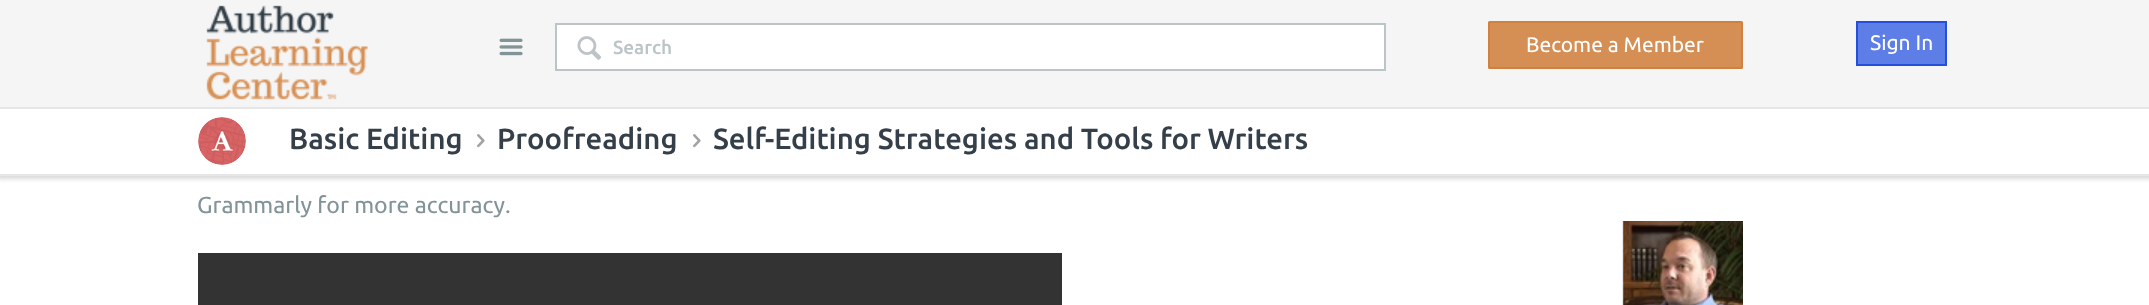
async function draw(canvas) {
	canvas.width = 2149;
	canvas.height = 305;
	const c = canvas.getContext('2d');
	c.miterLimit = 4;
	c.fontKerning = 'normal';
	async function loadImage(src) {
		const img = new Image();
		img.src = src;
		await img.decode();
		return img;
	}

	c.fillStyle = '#fff';
	c.fillRect(0, 0, 2149, 305);
	c.fillStyle = '#00000026';
	c.filter = 'blur(2px)';
	c.beginPath();
	c.rect(-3, -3, 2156, 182);
	c.fill();
	c.filter = 'none';
	for (const [x, y, w, h, color] of [
		[0, 109, 2149, 65, '#fff'],
		[0, 0, 2149, 107, '#f5f5f5'],
		[0, 107, 2149, 2, '#e6e6e6'],
	]) {
		c.fillStyle = color;
		c.fillRect(x, y, w, h);
	}
	c.drawImage(await loadImage('img1.png'), 206, 5, 162, 95);
	c.drawImage(await loadImage('img2.png'), 499, 38, 24, 18);
	c.fillStyle = '#fff';
	c.beginPath();
	c.rect(556, 24, 829, 46);
	c.fill();
	c.strokeStyle = '#bbc4c7';
	c.lineWidth = 2;
	c.stroke();
	c.drawImage(await loadImage('img3.png'), 577, 36, 25, 24);
	c.font = '500 19px Ubuntu';
	c.fillStyle = '#bbc4c7';
	c.fillText('Search', 613, 54);
	c.fillStyle = '#d58e53';
	c.beginPath();
	c.roundRect(1489, 22, 253, 46, 0.5);
	c.fill();
	c.strokeStyle = '#d0813f';
	c.stroke();
	c.font = '21px Ubuntu';
	c.fillStyle = '#fff';
	c.fillText('Become a Member', 1526, 52);
	c.fillStyle = '#5d7ee6';
	c.beginPath();
	c.rect(1857, 22, 89, 43);
	c.fill();
	c.strokeStyle = '#244fdd';
	c.stroke();
	c.fillStyle = '#fff';
	c.fillText('Sign In', 1870, 50);
	c.fillStyle = '#e6e6e6';
	c.fillRect(0, 174, 2149, 2);
	c.drawImage(await loadImage('img4.png'), 198, 117, 48, 48);
	c.font = '500 29.25px Ubuntu';
	c.fillStyle = '#343f49';
	c.fillText('Basic Editing', 289, 149);
	c.drawImage(await loadImage('img5.png'), 477, 134, 8, 14);
	c.fillText('Proofreading', 497, 149);
	c.drawImage(await loadImage('img5.png'), 693, 134, 8, 14);
	c.fillText('Self-Editing Strategies and Tools for Writers', 713, 149);
	c.font = '23.1px Ubuntu';
	c.fillStyle = '#839499';
	c.fillText('Grammarly for more accuracy.', 197, 213);
	c.fillStyle = '#333';
	c.fillRect(198, 253, 864, 52);
	c.drawImage(await loadImage('img6.png'), 1622, 221, 121, 84);
}

draw(document.querySelector('canvas'));
